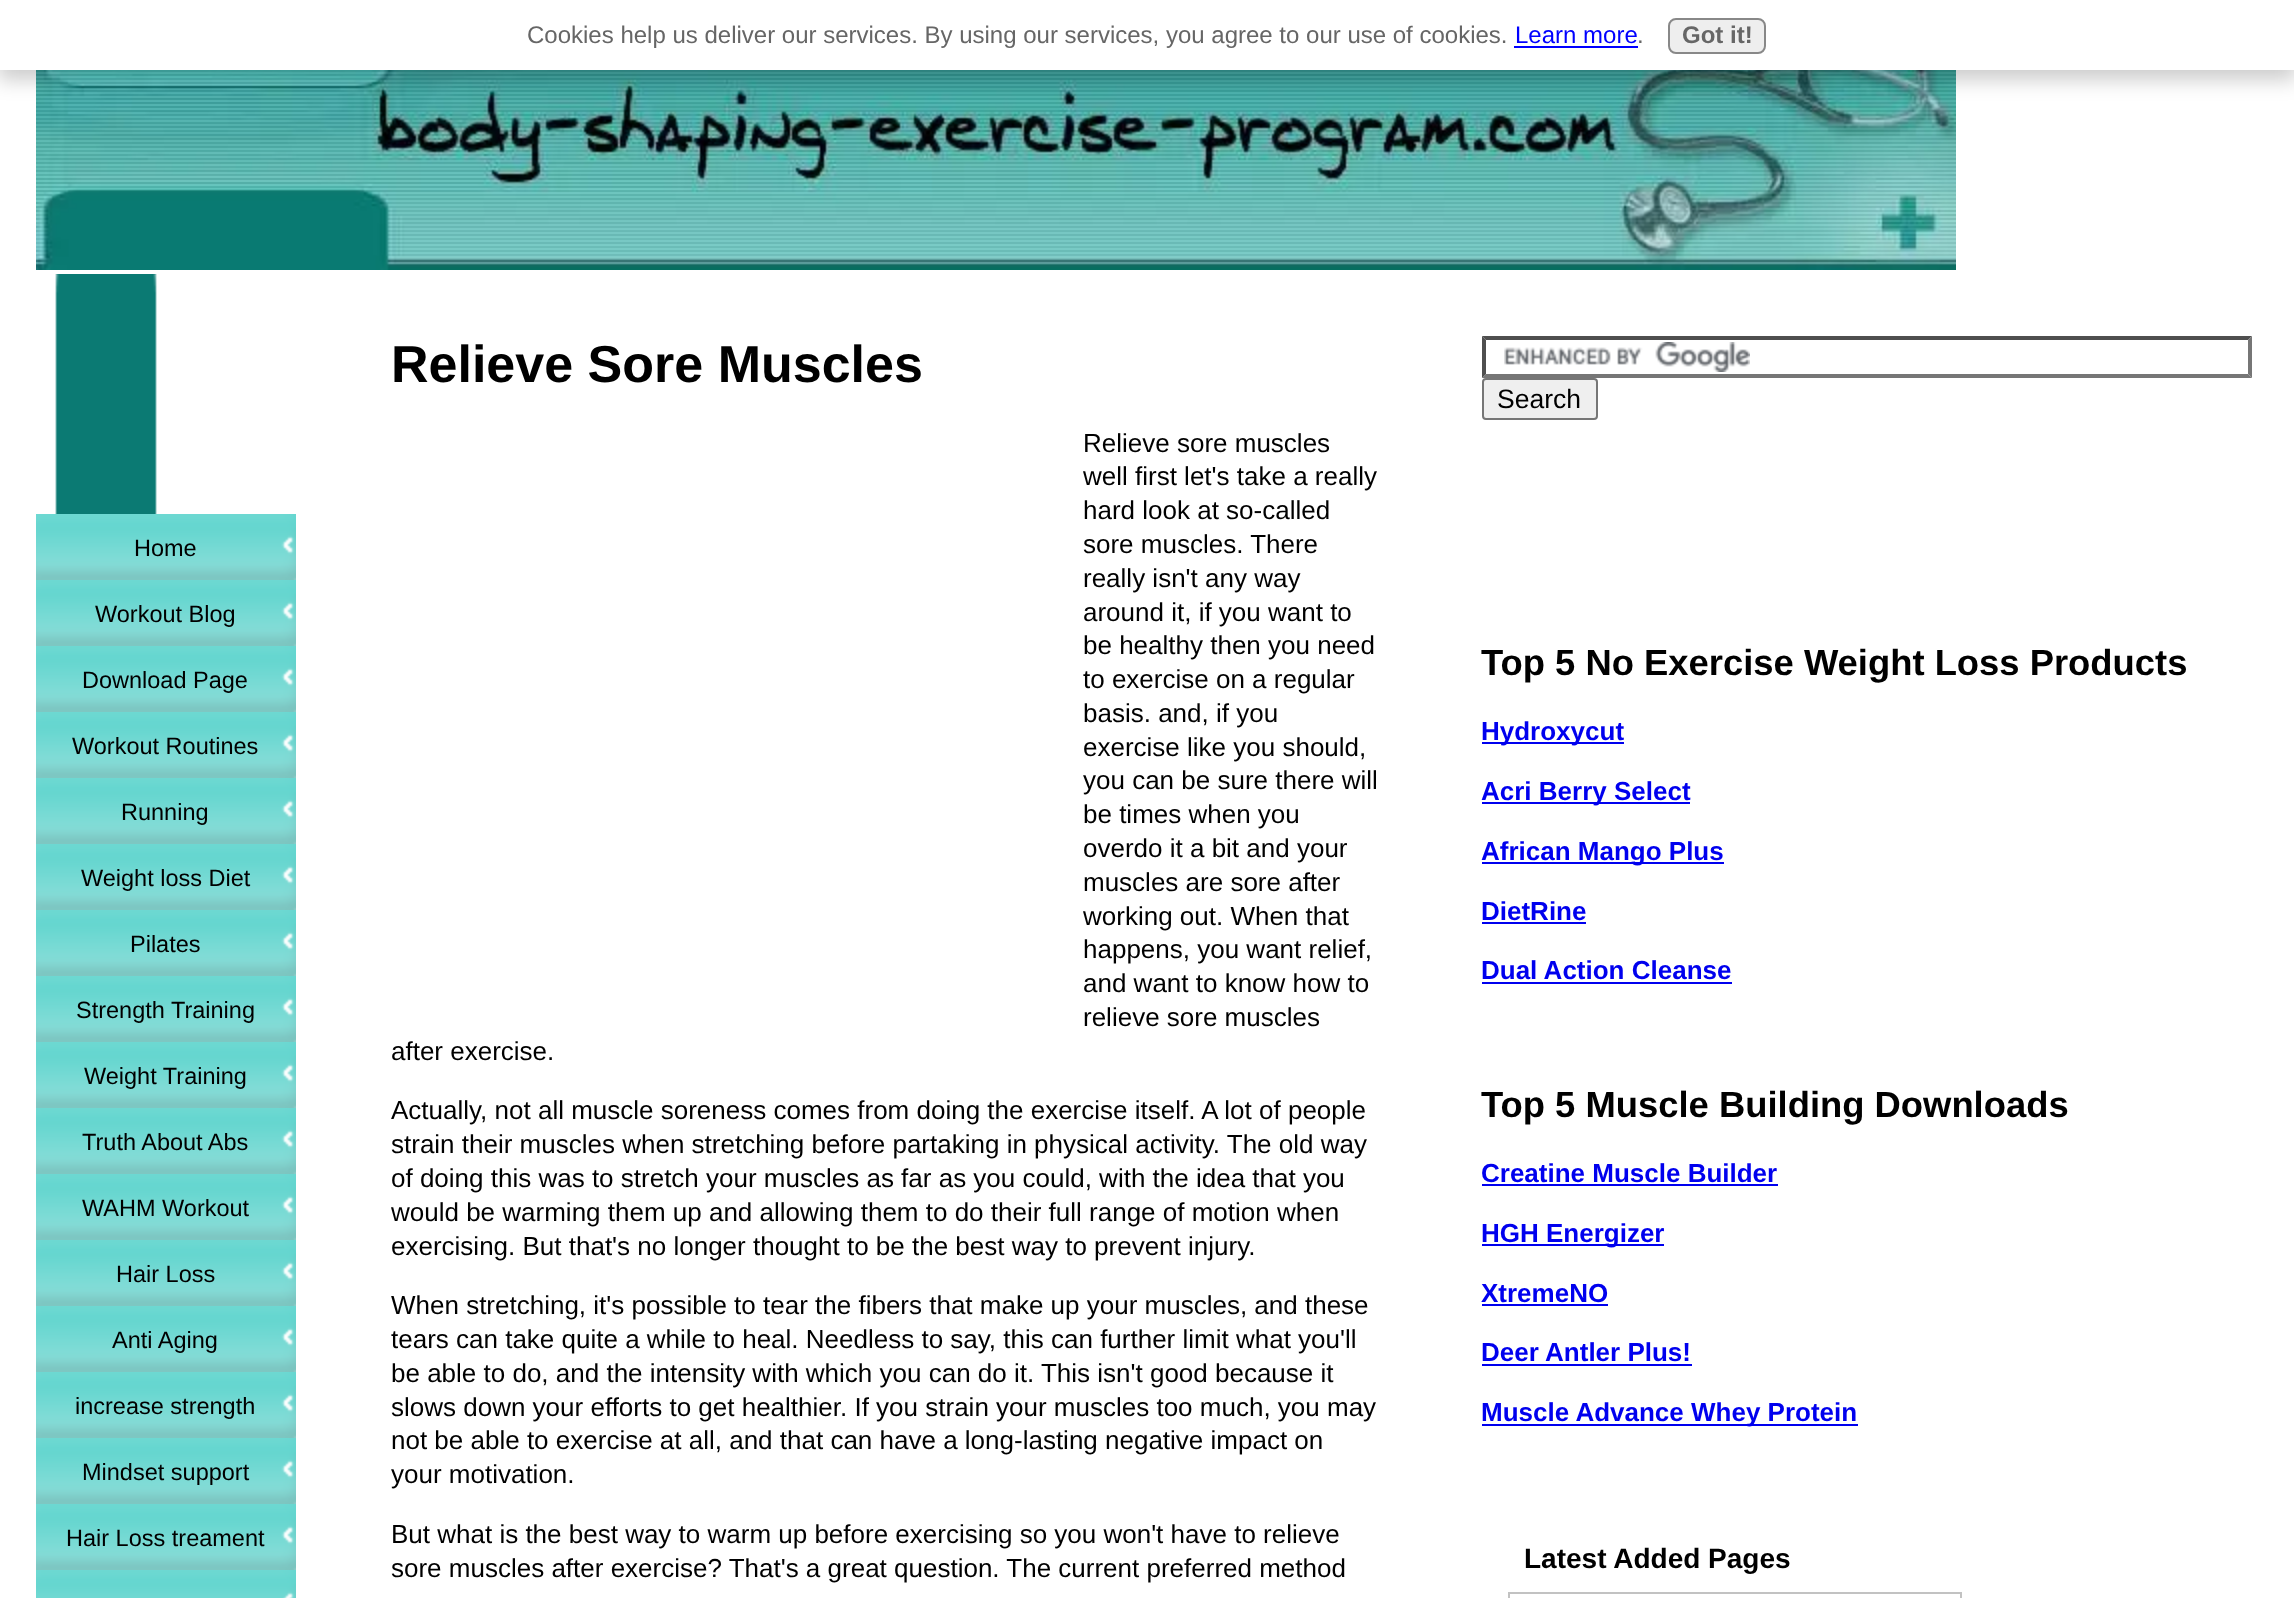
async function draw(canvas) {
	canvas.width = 2294;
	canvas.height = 1598;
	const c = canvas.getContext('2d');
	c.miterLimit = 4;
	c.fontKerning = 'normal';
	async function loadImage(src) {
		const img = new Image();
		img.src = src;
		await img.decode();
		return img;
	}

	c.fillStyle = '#fff';
	c.fillRect(0, 0, 2294, 1598);
	c.drawImage(await loadImage('img1.png'), 36, 70, 1920, 200);
	c.fillStyle = '#00000033';
	c.filter = 'blur(10px)';
	c.beginPath();
	c.rect(-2, 6, 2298, 74);
	c.fill();
	c.filter = 'none';
	c.fillStyle = '#fff';
	c.fillRect(0, 0, 2294, 70);
	c.font = '24px Liberation Sans';
	c.fillStyle = '#666';
	c.fillText('Cookies help us deliver our services. By using our services, you agree to our use of cookies.', 527, 43);
	c.fillStyle = '#00f';
	c.fillText('Learn more', 1515, 43);
	c.fillRect(1514, 46, 124, 2);
	c.fillStyle = '#666';
	c.fillText('.', 1637, 43);
	c.fillStyle = '#eee';
	c.beginPath();
	c.roundRect(1669, 19, 96, 34, 7);
	c.fill();
	c.strokeStyle = '#888';
	c.lineWidth = 2;
	c.stroke();
	c.font = 'bold 24px Liberation Sans';
	c.fillStyle = '#666';
	c.fillText('Got it!', 1682, 43);
	c.drawImage(await loadImage('img2.png'), 55, 274, 102, 240);
	c.drawImage(await loadImage('img3.png'), 36, 514, 260, 66);
	c.font = '23.5px Liberation Sans';
	c.fillStyle = '#000';
	c.fillText('Home', 134, 556);
	c.drawImage(await loadImage('img3.png'), 36, 580, 260, 66);
	c.fillText('Workout Blog', 95, 622);
	c.drawImage(await loadImage('img3.png'), 36, 646, 260, 66);
	c.fillText('Download Page', 82, 688);
	c.drawImage(await loadImage('img3.png'), 36, 712, 260, 66);
	c.fillText('Workout Routines', 72, 754);
	c.drawImage(await loadImage('img3.png'), 36, 778, 260, 66);
	c.fillText('Running', 121, 820);
	c.drawImage(await loadImage('img3.png'), 36, 844, 260, 66);
	c.fillText('Weight loss Diet', 81, 886);
	c.drawImage(await loadImage('img3.png'), 36, 910, 260, 66);
	c.fillText('Pilates', 130, 952);
	c.drawImage(await loadImage('img3.png'), 36, 976, 260, 66);
	c.fillText('Strength Training', 76, 1018);
	c.drawImage(await loadImage('img3.png'), 36, 1042, 260, 66);
	c.fillText('Weight Training', 84, 1084);
	c.drawImage(await loadImage('img3.png'), 36, 1108, 260, 66);
	c.fillText('Truth About Abs', 82, 1150);
	c.drawImage(await loadImage('img3.png'), 36, 1174, 260, 66);
	c.fillText('WAHM Workout', 82, 1216);
	c.drawImage(await loadImage('img3.png'), 36, 1240, 260, 66);
	c.fillText('Hair Loss', 116, 1282);
	c.drawImage(await loadImage('img3.png'), 36, 1306, 260, 66);
	c.fillText('Anti Aging', 112, 1348);
	c.drawImage(await loadImage('img3.png'), 36, 1372, 260, 66);
	c.fillText('increase strength', 75, 1414);
	c.drawImage(await loadImage('img3.png'), 36, 1438, 260, 66);
	c.fillText('Mindset support', 82, 1480);
	c.drawImage(await loadImage('img3.png'), 36, 1504, 260, 66);
	c.fillText('Hair Loss treament', 66, 1546);
	c.drawImage(await loadImage('img4.png'), 36, 1570, 260, 28);
	c.font = 'bold 52px Liberation Sans';
	c.fillText('Relieve Sore Muscles', 391, 382);
	c.font = '26px Liberation Sans';
	for (const [text, x, y] of [
		['Relieve sore muscles', 1083, 452],
		['well first let\'s take a really', 1083, 485],
		['hard look at so-called', 1083, 519],
		['sore muscles. There', 1083, 553],
		['really isn\'t any way', 1083, 587],
		['around it, if you want to', 1083, 621],
		['be healthy then you need', 1083, 654],
		['to exercise on a regular', 1083, 688],
		['basis. and, if you', 1083, 722],
		['exercise like you should,', 1083, 756],
		['you can be sure there will', 1083, 789],
		['be times when you', 1083, 823],
		['overdo it a bit and your', 1083, 857],
		['muscles are sore after', 1083, 891],
		['working out. When that', 1083, 925],
		['happens, you want relief,', 1083, 958],
		['and want to know how to', 1083, 992],
		['relieve sore muscles', 1083, 1026],
		['after exercise.', 391, 1060],
		['Actually, not all muscle soreness comes from doing the exercise itself. A lot of people', 391, 1119],
		['strain their muscles when stretching before partaking in physical activity. The old way', 391, 1153],
		['of doing this was to stretch your muscles as far as you could, with the idea that you', 391, 1187],
		['would be warming them up and allowing them to do their full range of motion when', 391, 1221],
		['exercising. But that\'s no longer thought to be the best way to prevent injury.', 391, 1255],
		['When stretching, it\'s possible to tear the fibers that make up your muscles, and these', 391, 1314],
		['tears can take quite a while to heal. Needless to say, this can further limit what you\'ll', 391, 1348],
		['be able to do, and the intensity with which you can do it. This isn\'t good because it', 391, 1382],
		['slows down your efforts to get healthier. If you strain your muscles too much, you may', 391, 1416],
		['not be able to exercise at all, and that can have a long-lasting negative impact on', 391, 1449],
		['your motivation.', 391, 1483],
		['But what is the best way to warm up before exercising so you won\'t have to relieve', 391, 1543],
		['sore muscles after exercise? That\'s a great question. The current preferred method', 391, 1577],
	]) {
		c.fillText(text, x, y);
	}
	c.drawImage(await loadImage('img5.png'), 1504, 342, 246, 30);
	c.fillStyle = '#4f4f4f';
	c.beginPath();
	c.moveTo(1482, 336);
	c.lineTo(2252, 336);
	c.lineTo(2248, 340);
	c.lineTo(1486, 340);
	c.closePath();
	c.fill();
	c.fillStyle = '#767676';
	c.beginPath();
	c.moveTo(2252, 336);
	c.lineTo(2252, 378);
	c.lineTo(2248, 374);
	c.lineTo(2248, 340);
	c.closePath();
	c.fill();
	c.beginPath();
	c.moveTo(2252, 378);
	c.lineTo(1482, 378);
	c.lineTo(1486, 374);
	c.lineTo(2248, 374);
	c.closePath();
	c.fill();
	c.fillStyle = '#4f4f4f';
	c.beginPath();
	c.moveTo(1482, 378);
	c.lineTo(1482, 336);
	c.lineTo(1486, 340);
	c.lineTo(1486, 374);
	c.closePath();
	c.fill();
	c.fillStyle = '#efefef';
	c.beginPath();
	c.roundRect(1483, 379, 114, 40, 3);
	c.fill();
	c.strokeStyle = '#767676';
	c.stroke();
	c.font = '26.5px Liberation Sans';
	c.fillStyle = '#000';
	c.fillText('Search', 1497, 408);
	c.font = 'bold 36.4px Liberation Sans';
	c.fillText('Top 5 No Exercise Weight Loss Products', 1481, 675);
	c.fillStyle = '#00e';
	c.fillRect(1482, 742, 142, 2);
	c.font = 'bold 26px Liberation Sans';
	c.fillText('Hydroxycut', 1481, 740);
	c.fillRect(1482, 802, 208, 2);
	c.fillText('Acri Berry Select', 1481, 800);
	c.fillRect(1482, 862, 242, 2);
	c.fillText('African Mango Plus', 1481, 860);
	c.fillText('DietRine', 1481, 920);
	c.fillRect(1482, 922, 104, 2);
	c.fillText('Dual Action Cleanse', 1481, 979);
	c.fillRect(1482, 982, 250, 2);
	c.font = 'bold 36.4px Liberation Sans';
	c.fillStyle = '#000';
	c.fillText('Top 5 Muscle Building Downloads', 1481, 1117);
	c.font = 'bold 26px Liberation Sans';
	c.fillStyle = '#00e';
	c.fillText('Creatine Muscle Builder', 1481, 1182);
	c.fillRect(1482, 1184, 296, 2);
	c.fillRect(1482, 1244, 182, 2);
	c.fillText('HGH Energizer', 1481, 1242);
	c.fillText('XtremeNO', 1481, 1302);
	c.fillRect(1482, 1304, 126, 2);
	c.fillText('Deer Antler Plus!', 1481, 1361);
	c.fillRect(1482, 1364, 210, 2);
	c.fillRect(1482, 1424, 376, 2);
	c.fillText('Muscle Advance Whey Protein', 1481, 1421);
	c.font = 'bold 28px Liberation Sans';
	c.fillStyle = '#000';
	c.fillText('Latest Added Pages', 1524, 1568);
	c.strokeStyle = '#c2c2c2';
	c.strokeRect(1509, 1593, 452, 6);
}

draw(document.querySelector('canvas'));
